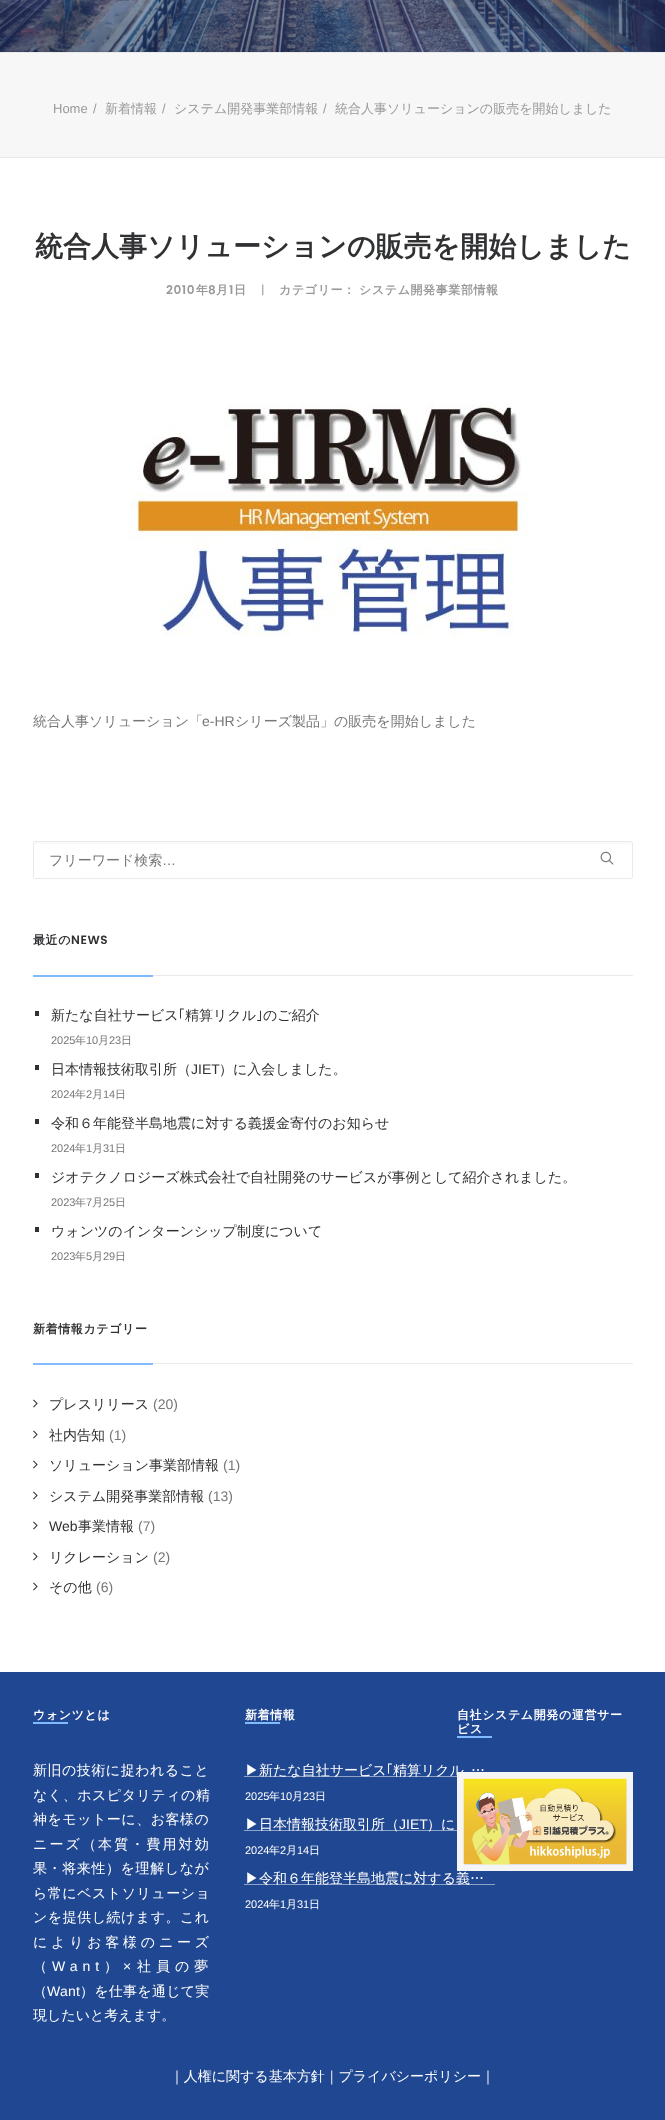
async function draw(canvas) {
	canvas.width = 665;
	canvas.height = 2120;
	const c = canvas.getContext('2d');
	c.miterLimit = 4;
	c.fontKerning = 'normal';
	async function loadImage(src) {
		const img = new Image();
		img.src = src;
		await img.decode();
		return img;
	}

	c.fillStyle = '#204791';
	c.fillRect(0, 0, 665, 2120);
	c.drawImage(await loadImage('img1.png'), 0, 0, 665, 52);
	c.drawImage(await loadImage('img2.png'), 0, 0, 665, 52);
	for (const [x, y, w, h, color] of [
		[0, 53, 665, 104, '#f7f7f7'],
		[0, 52, 665, 1, '#eaeaea'],
		[0, 157, 665, 1, '#eaeaea'],
	]) {
		c.fillStyle = color;
		c.fillRect(x, y, w, h);
	}
	c.font = '13px Liberation Sans';
	c.fillStyle = '#999';
	c.fillText('Home', 53, 113);
	c.fillText('/', 93, 113);
	c.font = '500 13px WenQuanYi Zen Hei';
	c.fillText('新着情報', 105, 113);
	c.font = '13px Liberation Sans';
	c.fillText('/', 162, 113);
	c.font = '500 13px WenQuanYi Zen Hei';
	c.fillText('システム開発事業部情報', 174, 113);
	c.font = '13px Liberation Sans';
	c.fillText('/', 323, 113);
	c.font = '500 13px WenQuanYi Zen Hei';
	c.fillText('統合人事ソリューションの販売を開始しました', 335, 113);
	c.fillStyle = '#fff';
	c.fillRect(0, 158, 665, 1514);
	c.font = 'bold 28px WenQuanYi Zen Hei';
	c.fillStyle = '#303133';
	c.fillText('統合人事ソリューションの販売を開始しました', 35, 256);
	c.letterSpacing = '0.6px';
	c.font = '600 12px Poppins';
	c.fillStyle = '#999';
	c.fillText('2010', 166, 294);
	c.font = 'bold 12px WenQuanYi Zen Hei';
	c.fillText('年', 196, 294);
	c.font = '600 12px Poppins';
	c.fillText('8', 208, 294);
	c.font = 'bold 12px WenQuanYi Zen Hei';
	c.fillText('月', 216, 294);
	c.font = '600 12px Poppins';
	c.fillText('1', 229, 294);
	c.font = 'bold 12px WenQuanYi Zen Hei';
	c.fillText('日', 234, 294);
	c.font = '12px Poppins';
	c.fillText('|', 261, 294);
	c.font = 'bold 12px WenQuanYi Zen Hei';
	c.fillText('カテゴリー：', 279, 294);
	c.fillText('システム開発事業部情報', 359, 294);
	c.drawImage(await loadImage('img3.png'), 129, 403, 400, 233);
	c.letterSpacing = '0px';
	c.font = '500 14px WenQuanYi Zen Hei';
	c.fillStyle = '#777';
	c.fillText('統合人事ソリューション「', 33, 726);
	c.font = '14px Liberation Sans';
	c.fillText('e-HR', 202, 726);
	c.font = '500 14px WenQuanYi Zen Hei';
	c.fillText('シリーズ製品」の販売を開始しました', 235, 726);
	c.fillStyle = '#f9f9f9';
	c.beginPath();
	c.moveTo(35, 844);
	c.lineTo(631, 844);
	c.lineTo(632, 845);
	c.lineTo(632, 843);
	c.bezierCurveTo(632, 842, 632, 842, 631, 842);
	c.lineTo(35, 842);
	c.bezierCurveTo(34, 842, 34, 842, 34, 843);
	c.lineTo(34, 845);
	c.closePath();
	c.fill();
	c.beginPath();
	c.roundRect(33.5, 841.5, 599, 37, 1.5);
	c.strokeStyle = '#eaeaea';
	c.stroke();
	c.fillStyle = '#777';
	c.fillText('フリーワード検索', 49, 865);
	c.font = '14px Liberation Sans';
	c.fillText('…', 162, 865);
	c.drawImage(await loadImage('img4.png'), 600, 851, 14, 14);
	c.fillStyle = '#eaeaea';
	c.fillRect(153, 975, 480, 1);
	c.letterSpacing = '0.6px';
	c.font = 'bold 12px WenQuanYi Zen Hei';
	c.fillStyle = '#303133';
	c.fillText('最近の', 33, 944);
	c.font = '600 12px Poppins';
	c.fillText('NEWS', 71, 944);
	c.fillStyle = '#81bbfe';
	c.fillRect(33, 975, 120, 2);
	c.fillStyle = '#303133';
	c.fillRect(35, 1011, 4, 5);
	c.letterSpacing = '0px';
	c.font = '500 14px WenQuanYi Zen Hei';
	c.fillText('新たな自社サービス', 51, 1020);
	c.font = '14px IPAPGothic';
	c.fillText('｢', 178, 1020);
	c.font = '500 14px WenQuanYi Zen Hei';
	c.fillText('精算リクル', 185, 1020);
	c.font = '14px IPAPGothic';
	c.fillText('｣', 256, 1020);
	c.font = '500 14px WenQuanYi Zen Hei';
	c.fillText('のご紹介', 263, 1020);
	c.font = '11px Liberation Sans';
	c.fillStyle = '#777';
	c.fillText('2025', 51, 1044);
	c.font = '500 11px WenQuanYi Zen Hei';
	c.fillText('年', 75, 1044);
	c.font = '11px Liberation Sans';
	c.fillText('10', 86, 1044);
	c.font = '500 11px WenQuanYi Zen Hei';
	c.fillText('月', 98, 1044);
	c.font = '11px Liberation Sans';
	c.fillText('23', 109, 1044);
	c.font = '500 11px WenQuanYi Zen Hei';
	c.fillText('日', 121, 1044);
	c.fillStyle = '#303133';
	c.fillRect(35, 1065, 4, 5);
	c.font = '500 14px WenQuanYi Zen Hei';
	c.fillText('日本情報技術取引所（', 51, 1074);
	c.font = '14px Liberation Sans';
	c.fillText('JIET', 191, 1074);
	c.font = '500 14px WenQuanYi Zen Hei';
	c.fillText('）に入会しました。', 219, 1074);
	c.font = '11px Liberation Sans';
	c.fillStyle = '#777';
	c.fillText('2024', 51, 1098);
	c.font = '500 11px WenQuanYi Zen Hei';
	c.fillText('年', 75, 1098);
	c.font = '11px Liberation Sans';
	c.fillText('2', 86, 1098);
	c.font = '500 11px WenQuanYi Zen Hei';
	c.fillText('月', 92, 1098);
	c.font = '11px Liberation Sans';
	c.fillText('14', 103, 1098);
	c.font = '500 11px WenQuanYi Zen Hei';
	c.fillText('日', 115, 1098);
	c.fillStyle = '#303133';
	c.fillRect(35, 1119, 4, 5);
	c.font = '500 14px WenQuanYi Zen Hei';
	c.fillText('令和６年能登半島地震に対する義援金寄付のお知らせ', 51, 1128);
	c.font = '11px Liberation Sans';
	c.fillStyle = '#777';
	c.fillText('2024', 51, 1152);
	c.font = '500 11px WenQuanYi Zen Hei';
	c.fillText('年', 75, 1152);
	c.font = '11px Liberation Sans';
	c.fillText('1', 86, 1152);
	c.font = '500 11px WenQuanYi Zen Hei';
	c.fillText('月', 92, 1152);
	c.font = '11px Liberation Sans';
	c.fillText('31', 103, 1152);
	c.font = '500 11px WenQuanYi Zen Hei';
	c.fillText('日', 115, 1152);
	c.fillStyle = '#303133';
	c.fillRect(35, 1173, 4, 5);
	c.font = '500 14px WenQuanYi Zen Hei';
	c.fillText('ジオテクノロジーズ株式会社で自社開発のサービスが事例として紹介されました。', 51, 1182);
	c.font = '11px Liberation Sans';
	c.fillStyle = '#777';
	c.fillText('2023', 51, 1206);
	c.font = '500 11px WenQuanYi Zen Hei';
	c.fillText('年', 75, 1206);
	c.font = '11px Liberation Sans';
	c.fillText('7', 86, 1206);
	c.font = '500 11px WenQuanYi Zen Hei';
	c.fillText('月', 92, 1206);
	c.font = '11px Liberation Sans';
	c.fillText('25', 103, 1206);
	c.font = '500 11px WenQuanYi Zen Hei';
	c.fillText('日', 115, 1206);
	c.fillStyle = '#303133';
	c.fillRect(35, 1227, 4, 5);
	c.font = '500 14px WenQuanYi Zen Hei';
	c.fillText('ウォンツのインターンシップ制度について', 51, 1236);
	c.font = '11px Liberation Sans';
	c.fillStyle = '#777';
	c.fillText('2023', 51, 1260);
	c.font = '500 11px WenQuanYi Zen Hei';
	c.fillText('年', 75, 1260);
	c.font = '11px Liberation Sans';
	c.fillText('5', 86, 1260);
	c.font = '500 11px WenQuanYi Zen Hei';
	c.fillText('月', 92, 1260);
	c.font = '11px Liberation Sans';
	c.fillText('29', 103, 1260);
	c.font = '500 11px WenQuanYi Zen Hei';
	c.fillText('日', 115, 1260);
	c.fillStyle = '#eaeaea';
	c.fillRect(153, 1363, 480, 1);
	c.letterSpacing = '0.6px';
	c.font = 'bold 12px WenQuanYi Zen Hei';
	c.fillStyle = '#303133';
	c.fillText('新着情報カテゴリー', 33, 1333);
	c.fillStyle = '#81bbfe';
	c.fillRect(33, 1363, 120, 2);
	c.drawImage(await loadImage('img5.png'), 33, 1399, 5, 9);
	c.letterSpacing = '0px';
	c.font = '500 14px WenQuanYi Zen Hei';
	c.fillStyle = '#303133';
	c.fillText('プレスリリース', 49, 1409);
	c.font = '14px Liberation Sans';
	c.fillStyle = '#777';
	c.fillText('(20)', 153, 1409);
	c.drawImage(await loadImage('img5.png'), 33, 1430, 5, 9);
	c.font = '500 14px WenQuanYi Zen Hei';
	c.fillStyle = '#303133';
	c.fillText('社内告知', 49, 1440);
	c.font = '14px Liberation Sans';
	c.fillStyle = '#777';
	c.fillText('(1)', 109, 1440);
	c.drawImage(await loadImage('img5.png'), 33, 1460, 5, 9);
	c.font = '500 14px WenQuanYi Zen Hei';
	c.fillStyle = '#303133';
	c.fillText('ソリューション事業部情報', 49, 1470);
	c.font = '14px Liberation Sans';
	c.fillStyle = '#777';
	c.fillText('(1)', 223, 1470);
	c.drawImage(await loadImage('img5.png'), 33, 1491, 5, 9);
	c.font = '500 14px WenQuanYi Zen Hei';
	c.fillStyle = '#303133';
	c.fillText('システム開発事業部情報', 49, 1501);
	c.font = '14px Liberation Sans';
	c.fillStyle = '#777';
	c.fillText('(13)', 208, 1501);
	c.drawImage(await loadImage('img5.png'), 33, 1521, 5, 9);
	c.fillStyle = '#303133';
	c.fillText('Web', 49, 1531);
	c.font = '500 14px WenQuanYi Zen Hei';
	c.fillText('事業情報', 78, 1531);
	c.font = '14px Liberation Sans';
	c.fillStyle = '#777';
	c.fillText('(7)', 138, 1531);
	c.drawImage(await loadImage('img5.png'), 33, 1552, 5, 9);
	c.font = '500 14px WenQuanYi Zen Hei';
	c.fillStyle = '#303133';
	c.fillText('リクレーション', 49, 1562);
	c.font = '14px Liberation Sans';
	c.fillStyle = '#777';
	c.fillText('(2)', 153, 1562);
	c.drawImage(await loadImage('img5.png'), 33, 1582, 5, 9);
	c.font = '500 14px WenQuanYi Zen Hei';
	c.fillStyle = '#303133';
	c.fillText('その他', 49, 1592);
	c.font = '14px Liberation Sans';
	c.fillStyle = '#777';
	c.fillText('(6)', 96, 1592);
	c.letterSpacing = '0.6px';
	c.font = 'bold 12px WenQuanYi Zen Hei';
	c.fillStyle = '#fff';
	c.fillText('ウォンツとは', 33, 1719);
	c.fillStyle = '#81bbfe';
	c.fillRect(33, 1722, 35, 2);
	c.letterSpacing = '0.5px';
	c.font = '500 14px WenQuanYi Zen Hei';
	c.fillStyle = '#fff';
	for (const [text, x, y] of [
		['新旧の技術に捉われること', 33, 1775],
		['なく、ホスピタリティの精', 33, 1800],
		['神をモットーに、お客様の', 33, 1824],
	]) {
		c.fillText(text, x, y);
	}
	c.letterSpacing = '2.1px';
	c.fillText('ニーズ（本質・費用対効', 33, 1849);
	c.letterSpacing = '0.6px';
	c.fillText('果・将来性）を理解しなが', 33, 1873);
	c.letterSpacing = '0.5px';
	c.fillText('ら常にベストソリューショ', 33, 1898);
	c.fillText('ンを提供し続けます。これ', 33, 1922);
	c.letterSpacing = '3.75px';
	c.fillText('によりお客様のニーズ', 33, 1947);
	c.letterSpacing = '5px';
	c.fillText('（', 33, 1971);
	c.font = '14px Liberation Sans';
	c.fillText('Want', 52, 1971);
	c.font = '500 14px WenQuanYi Zen Hei';
	c.fillText('）', 104, 1971);
	c.font = '14px Liberation Sans';
	c.fillText('×', 123, 1971);
	c.font = '500 14px WenQuanYi Zen Hei';
	c.fillText('社員の夢', 137, 1971);
	c.letterSpacing = '0.25px';
	c.fillText('（', 33, 1996);
	c.font = '14px Liberation Sans';
	c.fillText('Want', 47, 1996);
	c.font = '500 14px WenQuanYi Zen Hei';
	c.fillText('）を仕事を通じて実', 80, 1996);
	c.letterSpacing = '0px';
	c.fillText('現したいと考えます。', 33, 2020);
	c.letterSpacing = '0.6px';
	c.font = 'bold 12px WenQuanYi Zen Hei';
	c.fillText('新着情報', 245, 1719);
	c.fillStyle = '#81bbfe';
	c.fillRect(245, 1722, 35, 2);
	c.letterSpacing = '0px';
	c.font = '500 14px WenQuanYi Zen Hei';
	c.fillStyle = '#fff';
	c.fillText('▶︎', 245, 1775);
	c.beginPath();
	c.moveTo(244.5, 1776.5);
	c.lineTo(258.5, 1776.5);
	c.strokeStyle = '#fff';
	c.setLineDash([1, 1]);
	c.stroke();
	c.beginPath();
	c.moveTo(258.5, 1776.5);
	c.lineTo(528, 1776.5);
	c.stroke();
	c.fillText('新たな自社サービス', 259, 1775);
	c.font = '14px IPAPGothic';
	c.fillText('｢', 386, 1775);
	c.font = '500 14px WenQuanYi Zen Hei';
	c.fillText('精算リクル', 393, 1775);
	c.fillText('…', 471, 1775);
	c.font = '11px Liberation Sans';
	c.fillText('2025', 245, 1800);
	c.font = '500 11px WenQuanYi Zen Hei';
	c.fillText('年', 269, 1800);
	c.font = '11px Liberation Sans';
	c.fillText('10', 280, 1800);
	c.font = '500 11px WenQuanYi Zen Hei';
	c.fillText('月', 292, 1800);
	c.font = '11px Liberation Sans';
	c.fillText('23', 303, 1800);
	c.font = '500 11px WenQuanYi Zen Hei';
	c.fillText('日', 315, 1800);
	c.font = '500 14px WenQuanYi Zen Hei';
	c.fillText('▶︎', 245, 1829);
	c.beginPath();
	c.moveTo(244.5, 1830.5);
	c.lineTo(258.5, 1830.5);
	c.stroke();
	c.beginPath();
	c.moveTo(258.5, 1830.5);
	c.lineTo(555, 1830.5);
	c.stroke();
	c.fillText('日本情報技術取引所（', 259, 1829);
	c.font = '14px Liberation Sans';
	c.fillText('JIET', 399, 1829);
	c.font = '500 14px WenQuanYi Zen Hei';
	c.fillText('）に', 427, 1829);
	c.font = '11px Liberation Sans';
	c.fillText('2024', 245, 1854);
	c.font = '500 11px WenQuanYi Zen Hei';
	c.fillText('年', 269, 1854);
	c.font = '11px Liberation Sans';
	c.fillText('2', 280, 1854);
	c.font = '500 11px WenQuanYi Zen Hei';
	c.fillText('月', 286, 1854);
	c.font = '11px Liberation Sans';
	c.fillText('14', 297, 1854);
	c.font = '500 11px WenQuanYi Zen Hei';
	c.fillText('日', 309, 1854);
	c.font = '500 14px WenQuanYi Zen Hei';
	c.fillText('▶︎', 245, 1883);
	c.beginPath();
	c.moveTo(244.5, 1884.5);
	c.lineTo(258.5, 1884.5);
	c.stroke();
	c.save();
	c.beginPath();
	c.rect(245, 1866, 250, 25);
	c.clip();
	c.beginPath();
	c.moveTo(258.5, 1884.5);
	c.lineTo(597, 1884.5);
	c.stroke();
	c.restore();
	c.fillText('令和６年能登半島地震に対する義…', 259, 1883);
	c.font = '11px Liberation Sans';
	c.fillText('2024', 245, 1908);
	c.font = '500 11px WenQuanYi Zen Hei';
	c.fillText('年', 269, 1908);
	c.font = '11px Liberation Sans';
	c.fillText('1', 280, 1908);
	c.font = '500 11px WenQuanYi Zen Hei';
	c.fillText('月', 286, 1908);
	c.font = '11px Liberation Sans';
	c.fillText('31', 297, 1908);
	c.font = '500 11px WenQuanYi Zen Hei';
	c.fillText('日', 309, 1908);
	c.letterSpacing = '0.6px';
	c.font = 'bold 12px WenQuanYi Zen Hei';
	c.fillText('自社システム開発の運営サー', 457, 1719);
	c.fillText('ビス', 457, 1733);
	c.fillStyle = '#81bbfe';
	c.fillRect(457, 1736, 35, 2);
	c.drawImage(await loadImage('img6.png'), 457, 1772, 176, 99);
	c.letterSpacing = '0px';
	c.font = '500 14px WenQuanYi Zen Hei';
	c.fillStyle = '#fff';
	c.fillText('｜人権に関する基本方針｜プライバシーポリシー｜', 170, 2081);
}

draw(document.querySelector('canvas'));
